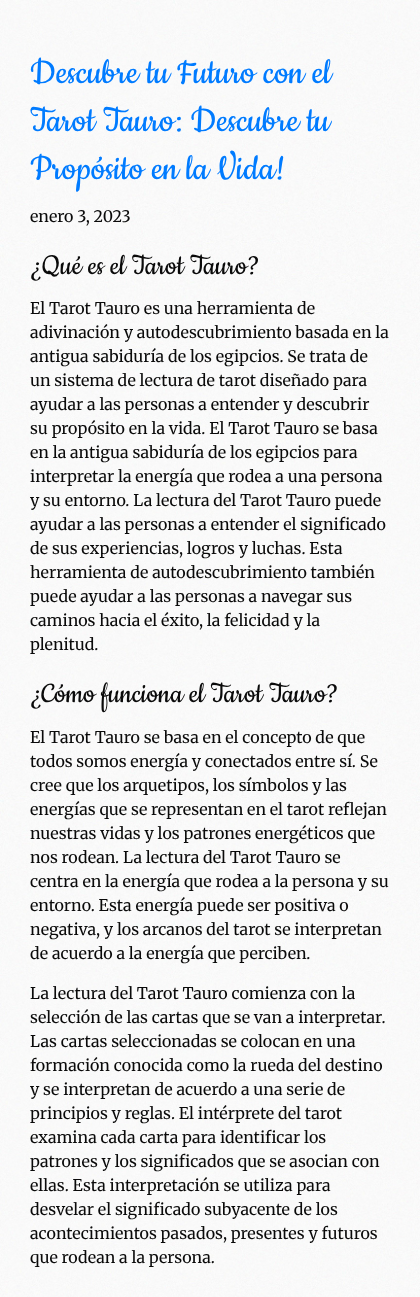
async function draw(canvas) {
	canvas.width = 420;
	canvas.height = 1297;
	const c = canvas.getContext('2d');
	c.miterLimit = 4;
	c.fontKerning = 'normal';
	async function loadImage(src) {
		const img = new Image();
		img.src = src;
		await img.decode();
		return img;
	}

	c.fillStyle = '#fff';
	c.fillRect(0, 0, 420, 1297);
	c.drawImage(await loadImage('img1.png'), 0, 0, 420, 1297);
	c.font = '40px Cookie';
	c.fillStyle = '#007bff';
	for (const [text, x, y] of [
		['Descubre tu Futuro con el', 30, 83],
		['Tarot Tauro: Descubre tu', 30, 131],
		['Propósito en la Vida!', 30, 179],
	]) {
		c.fillText(text, x, y);
	}
	c.font = '300 16px Merriweather';
	c.fillStyle = '#0a0a0a';
	c.fillText('enero 3, 2023', 30, 222);
	c.font = '32px Cookie';
	c.fillText('¿Qué es el Tarot Tauro?', 30, 274);
	c.font = '300 16px Merriweather';
	for (const [text, x, y] of [
		['El Tarot Tauro es una herramienta de', 30, 314],
		['adivinación y autodescubrimiento basada en la', 30, 338],
		['antigua sabiduría de los egipcios. Se trata de', 30, 362],
		['un sistema de lectura de tarot diseñado para', 30, 386],
		['ayudar a las personas a entender y descubrir', 30, 410],
		['su propósito en la vida. El Tarot Tauro se basa', 30, 434],
		['en la antigua sabiduría de los egipcios para', 30, 458],
		['interpretar la energía que rodea a una persona', 30, 482],
		['y su entorno. La lectura del Tarot Tauro puede', 30, 506],
		['ayudar a las personas a entender el significado', 30, 530],
		['de sus experiencias, logros y luchas. Esta', 30, 554],
		['herramienta de autodescubrimiento también', 30, 578],
		['puede ayudar a las personas a navegar sus', 30, 602],
		['caminos hacia el éxito, la felicidad y la', 30, 626],
		['plenitud.', 30, 650],
	]) {
		c.fillText(text, x, y);
	}
	c.font = '32px Cookie';
	c.fillText('¿Cómo funciona el Tarot Tauro?', 30, 702);
	c.font = '300 16px Merriweather';
	for (const [text, x, y] of [
		['El Tarot Tauro se basa en el concepto de que', 30, 743],
		['todos somos energía y conectados entre sí. Se', 30, 767],
		['cree que los arquetipos, los símbolos y las', 30, 791],
		['energías que se representan en el tarot reflejan', 30, 815],
		['nuestras vidas y los patrones energéticos que', 30, 839],
		['nos rodean. La lectura del Tarot Tauro se', 30, 863],
		['centra en la energía que rodea a la persona y su', 30, 887],
		['entorno. Esta energía puede ser positiva o', 30, 911],
		['negativa, y los arcanos del tarot se interpretan', 30, 935],
		['de acuerdo a la energía que perciben.', 30, 959],
		['La lectura del Tarot Tauro comienza con la', 30, 999],
		['selección de las cartas que se van a interpretar.', 30, 1023],
		['Las cartas seleccionadas se colocan en una', 30, 1047],
		['formación conocida como la rueda del destino', 30, 1071],
		['y se interpretan de acuerdo a una serie de', 30, 1095],
		['principios y reglas. El intérprete del tarot', 30, 1119],
		['examina cada carta para identificar los', 30, 1143],
		['patrones y los significados que se asocian con', 30, 1167],
		['ellas. Esta interpretación se utiliza para', 30, 1191],
		['desvelar el significado subyacente de los', 30, 1215],
		['acontecimientos pasados, presentes y futuros', 30, 1239],
		['que rodean a la persona.', 30, 1263],
	]) {
		c.fillText(text, x, y);
	}
}

draw(document.querySelector('canvas'));
